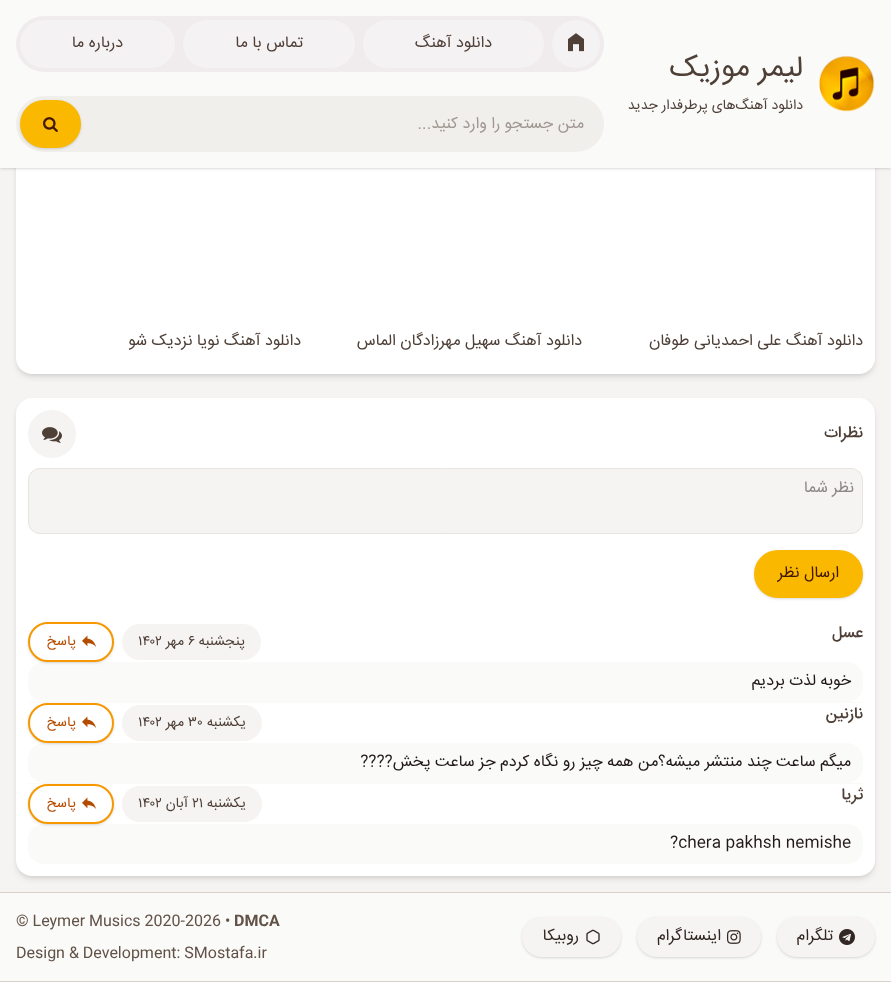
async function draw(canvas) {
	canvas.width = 891;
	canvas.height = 982;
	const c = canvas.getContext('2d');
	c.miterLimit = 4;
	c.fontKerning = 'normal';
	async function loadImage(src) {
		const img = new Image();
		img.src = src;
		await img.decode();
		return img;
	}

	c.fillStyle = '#f6f4f2';
	c.fillRect(0, 0, 891, 982);
	c.fillStyle = '#0000001a';
	c.filter = 'blur(2px)';
	c.beginPath();
	c.roundRect(18, -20, 855, 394, 14);
	c.fill();
	c.filter = 'none';
	c.filter = 'blur(3px)';
	c.beginPath();
	c.roundRect(17, -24, 857, 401, 15);
	c.fill();
	c.filter = 'none';
	c.fillStyle = '#fff';
	c.beginPath();
	c.roundRect(16, -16, 859, 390, 16);
	c.fill();
	c.fillStyle = '#0000001a';
	c.filter = 'blur(1px)';
	c.beginPath();
	c.rect(1, 2, 889, 166);
	c.fill();
	c.filter = 'none';
	c.filter = 'blur(1.5px)';
	c.beginPath();
	c.rect(0, 1, 891, 168);
	c.fill();
	c.filter = 'none';
	c.fillStyle = '#fafaf9';
	c.fillRect(0, 0, 891, 168);
	c.fillStyle = '#f0ebec';
	c.beginPath();
	c.roundRect(16, 16, 588, 56, 28);
	c.fill();
	c.fillStyle = '#fafaf980';
	c.beginPath();
	c.arc(576, 44, 24, 0, 2 * Math.PI);
	c.fill();
	c.drawImage(await loadImage('img1.png'), 568, 33, 16, 19);
	c.beginPath();
	c.roundRect(363, 20, 181, 48, 24);
	c.fill();
	c.direction = 'rtl';
	c.font = '16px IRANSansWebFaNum';
	c.fillStyle = '#4e3f37';
	c.fillText('دانلود آهنگ', 492, 47);
	c.fillStyle = '#fafaf980';
	c.beginPath();
	c.roundRect(183, 20, 172, 48, 24);
	c.fill();
	c.fillStyle = '#4e3f37';
	c.fillText('تماس با ما', 303, 47);
	c.fillStyle = '#fafaf980';
	c.beginPath();
	c.roundRect(20, 20, 155, 48, 24);
	c.fill();
	c.fillStyle = '#4e3f37';
	c.fillText('درباره ما', 123, 47);
	c.drawImage(await loadImage('img2.png'), 819, 55, 56, 57);
	c.font = '30px IRANSansWebFaNum';
	c.fillText('لیمر موزیک', 803, 76);
	c.font = '14px IRANSansWebFaNum';
	c.fillText('دانلود آهنگ‌های پرطرفدار جدید', 803, 109);
	c.fillStyle = '#f1efec';
	c.beginPath();
	c.roundRect(16, 96, 588, 56, 28);
	c.fill();
	c.font = '16px IRANSansWebFaNum';
	c.fillStyle = '#a09792';
	c.fillText('متن جستجو را وارد کنید...', 584, 128);
	c.fillStyle = '#0000001a';
	c.filter = 'blur(1px)';
	c.beginPath();
	c.roundRect(21, 102, 59, 46, 23);
	c.fill();
	c.filter = 'none';
	c.filter = 'blur(1.5px)';
	c.beginPath();
	c.roundRect(20, 101, 61, 48, 24);
	c.fill();
	c.filter = 'none';
	c.fillStyle = '#fab800';
	c.beginPath();
	c.roundRect(20, 100, 61, 48, 24);
	c.fill();
	c.drawImage(await loadImage('img3.png'), 43, 117, 15, 15);
	c.fillStyle = '#4e3f37';
	for (const [text, x, y] of [
		['دانلود آهنگ علی احمدیانی طوفان', 863, 345],
		['دانلود آهنگ سهیل مهرزادگان الماس', 582, 345],
		['دانلود آهنگ نویا نزدیک شو', 301, 345],
	]) {
		c.fillText(text, x, y);
	}
	c.fillStyle = '#0000001a';
	c.filter = 'blur(2px)';
	c.beginPath();
	c.roundRect(18, 402, 855, 474, 14);
	c.fill();
	c.filter = 'none';
	c.filter = 'blur(3px)';
	c.beginPath();
	c.roundRect(17, 403, 857, 476, 15);
	c.fill();
	c.filter = 'none';
	c.fillStyle = '#fff';
	c.beginPath();
	c.roundRect(16, 398, 859, 478, 16);
	c.fill();
	c.font = '500 16px IRANSansWebFaNum';
	c.fillStyle = '#4e3f37';
	c.fillText('نظرات', 863, 437);
	c.fillStyle = '#f6f4f2';
	c.beginPath();
	c.arc(52, 434, 24, 0, 2 * Math.PI);
	c.fill();
	c.drawImage(await loadImage('img4.png'), 42, 427, 20, 16);
	c.beginPath();
	c.roundRect(28.5, 468.5, 834, 65, 11.5);
	c.fill();
	c.strokeStyle = '#e8e4df';
	c.stroke();
	c.font = '16px IRANSansWebFaNum';
	c.fillStyle = '#8c8784';
	c.fillText('نظر شما', 854, 492);
	c.fillStyle = '#0000001a';
	c.filter = 'blur(1px)';
	c.beginPath();
	c.roundRect(755, 552, 107, 46, 23);
	c.fill();
	c.filter = 'none';
	c.filter = 'blur(1.5px)';
	c.beginPath();
	c.roundRect(754, 551, 109, 48, 24);
	c.fill();
	c.filter = 'none';
	c.fillStyle = '#fab800';
	c.beginPath();
	c.roundRect(754, 550, 109, 48, 24);
	c.fill();
	c.fillStyle = '#431802';
	c.fillText('ارسال نظر', 839, 577);
	c.font = '500 16px IRANSansWebFaNum';
	c.fillStyle = '#4e3f37';
	c.fillText('عسل', 863, 637);
	c.fillStyle = '#f6f4f2';
	c.beginPath();
	c.roundRect(122, 624, 139, 36, 18);
	c.fill();
	c.font = '14px IRANSansWebFaNum';
	c.fillStyle = '#4e3f37';
	c.fillText('پنجشنبه', 245, 645);
	c.direction = 'ltr';
	c.fillText('۶', 188, 645);
	c.direction = 'rtl';
	c.fillText('مهر', 184, 645);
	c.direction = 'ltr';
	c.fillText('۱۴۰۲', 138, 645);
	c.fillStyle = '#fafaf9';
	c.beginPath();
	c.roundRect(28, 662, 835, 40, 16);
	c.fill();
	c.fillStyle = '#0000001a';
	c.filter = 'blur(1px)';
	c.beginPath();
	c.roundRect(29, 624, 84, 38, 19);
	c.fill();
	c.filter = 'none';
	c.filter = 'blur(1.5px)';
	c.beginPath();
	c.roundRect(28, 623, 86, 40, 20);
	c.fill();
	c.filter = 'none';
	c.fillStyle = '#fff';
	c.beginPath();
	c.roundRect(29, 623, 84, 38, 19);
	c.fill();
	c.strokeStyle = '#f79800';
	c.lineWidth = 2;
	c.stroke();
	c.drawImage(await loadImage('img5.png'), 82, 635, 14, 12);
	c.direction = 'rtl';
	c.fillStyle = '#b44c00';
	c.fillText('پاسخ', 76, 645);
	c.font = '16px IRANSansWebFaNum';
	c.fillStyle = '#211916';
	c.fillText('خوبه لذت بردیم', 851, 685);
	c.fillStyle = '#fafaf9';
	c.fillRect(28, 702, 835, 1);
	c.font = '500 16px IRANSansWebFaNum';
	c.fillStyle = '#4e3f37';
	c.fillText('نازنین', 863, 718);
	c.fillStyle = '#f6f4f2';
	c.beginPath();
	c.roundRect(122, 705, 140, 36, 18);
	c.fill();
	c.font = '14px IRANSansWebFaNum';
	c.fillStyle = '#4e3f37';
	c.fillText('یکشنبه', 246, 726);
	c.direction = 'ltr';
	c.fillText('۳۰', 188, 726);
	c.direction = 'rtl';
	c.fillText('مهر', 184, 726);
	c.direction = 'ltr';
	c.fillText('۱۴۰۲', 138, 726);
	c.fillStyle = '#fafaf9';
	c.beginPath();
	c.roundRect(28, 743, 835, 40, 16);
	c.fill();
	c.fillStyle = '#0000001a';
	c.filter = 'blur(1px)';
	c.beginPath();
	c.roundRect(29, 705, 84, 38, 19);
	c.fill();
	c.filter = 'none';
	c.filter = 'blur(1.5px)';
	c.beginPath();
	c.roundRect(28, 704, 86, 40, 20);
	c.fill();
	c.filter = 'none';
	c.fillStyle = '#fff';
	c.beginPath();
	c.roundRect(29, 704, 84, 38, 19);
	c.fill();
	c.stroke();
	c.drawImage(await loadImage('img5.png'), 82, 716, 14, 12);
	c.direction = 'rtl';
	c.fillStyle = '#b44c00';
	c.fillText('پاسخ', 76, 726);
	c.font = '16px IRANSansWebFaNum';
	c.fillStyle = '#211916';
	c.fillText('میگم ساعت چند منتشر میشه؟من همه چیز رو نگاه کردم جز ساعت پخش????', 851, 766);
	c.fillStyle = '#fafaf9';
	c.fillRect(28, 783, 835, 1);
	c.font = '500 16px IRANSansWebFaNum';
	c.fillStyle = '#4e3f37';
	c.fillText('ثریا', 863, 799);
	c.fillStyle = '#f6f4f2';
	c.beginPath();
	c.roundRect(122, 786, 140, 36, 18);
	c.fill();
	c.font = '14px IRANSansWebFaNum';
	c.fillStyle = '#4e3f37';
	c.fillText('یکشنبه', 246, 807);
	c.direction = 'ltr';
	c.fillText('۲۱', 192, 807);
	c.direction = 'rtl';
	c.fillText('آبان', 188, 807);
	c.direction = 'ltr';
	c.fillText('۱۴۰۲', 138, 807);
	c.fillStyle = '#fafaf9';
	c.beginPath();
	c.roundRect(28, 824, 835, 40, 16);
	c.fill();
	c.fillStyle = '#0000001a';
	c.filter = 'blur(1px)';
	c.beginPath();
	c.roundRect(29, 786, 84, 38, 19);
	c.fill();
	c.filter = 'none';
	c.filter = 'blur(1.5px)';
	c.beginPath();
	c.roundRect(28, 785, 86, 40, 20);
	c.fill();
	c.filter = 'none';
	c.fillStyle = '#fff';
	c.beginPath();
	c.roundRect(29, 785, 84, 38, 19);
	c.fill();
	c.stroke();
	c.drawImage(await loadImage('img5.png'), 82, 797, 14, 12);
	c.direction = 'rtl';
	c.fillStyle = '#b44c00';
	c.fillText('پاسخ', 76, 807);
	c.direction = 'ltr';
	c.font = '16px IRANSansWebFaNum';
	c.fillStyle = '#211916';
	c.fillText('?chera pakhsh nemishe', 670, 847);
	for (const [x, y, w, h, color] of [
		[0, 893, 891, 88, '#fafaf9'],
		[0, 892, 891, 1, '#d9d1c9'],
		[0, 981, 891, 1, '#d9d1c9'],
	]) {
		c.fillStyle = color;
		c.fillRect(x, y, w, h);
	}
	c.fillStyle = '#0000001a';
	c.filter = 'blur(1px)';
	c.beginPath();
	c.roundRect(778, 919, 96, 38, 19);
	c.fill();
	c.filter = 'none';
	c.filter = 'blur(1.5px)';
	c.beginPath();
	c.roundRect(777, 918, 98, 40, 20);
	c.fill();
	c.filter = 'none';
	c.fillStyle = '#f6f4f2';
	c.beginPath();
	c.roundRect(777, 917, 98, 40, 20);
	c.fill();
	c.drawImage(await loadImage('img6.png'), 839, 929, 16, 16);
	c.direction = 'rtl';
	c.fillStyle = '#322722';
	c.fillText('تلگرام', 833, 940);
	c.fillStyle = '#0000001a';
	c.filter = 'blur(1px)';
	c.beginPath();
	c.roundRect(638, 919, 122, 38, 19);
	c.fill();
	c.filter = 'none';
	c.filter = 'blur(1.5px)';
	c.beginPath();
	c.roundRect(637, 918, 124, 40, 20);
	c.fill();
	c.filter = 'none';
	c.fillStyle = '#f6f4f2';
	c.beginPath();
	c.roundRect(637, 917, 124, 40, 20);
	c.fill();
	c.drawImage(await loadImage('img7.png'), 727, 930, 14, 14);
	c.fillStyle = '#322722';
	c.fillText('اینستاگرام', 721, 940);
	c.fillStyle = '#0000001a';
	c.filter = 'blur(1px)';
	c.beginPath();
	c.roundRect(523, 919, 97, 38, 19);
	c.fill();
	c.filter = 'none';
	c.filter = 'blur(1.5px)';
	c.beginPath();
	c.roundRect(522, 918, 99, 40, 20);
	c.fill();
	c.filter = 'none';
	c.fillStyle = '#f6f4f2';
	c.beginPath();
	c.roundRect(522, 917, 99, 40, 20);
	c.fill();
	c.drawImage(await loadImage('img8.png'), 586, 929, 14, 16);
	c.fillStyle = '#322722';
	c.fillText('روبیکا', 579, 940);
	c.direction = 'ltr';
	c.font = 'bold 16px Roboto';
	c.fillStyle = '#625146';
	c.fillText('DMCA', 234, 926);
	c.font = '16px Roboto';
	c.fillText('© Leymer Musics 2020-2026 •', 16, 926);
	c.fillText('Design & Development: SMostafa.ir', 16, 958);
}

draw(document.querySelector('canvas'));
